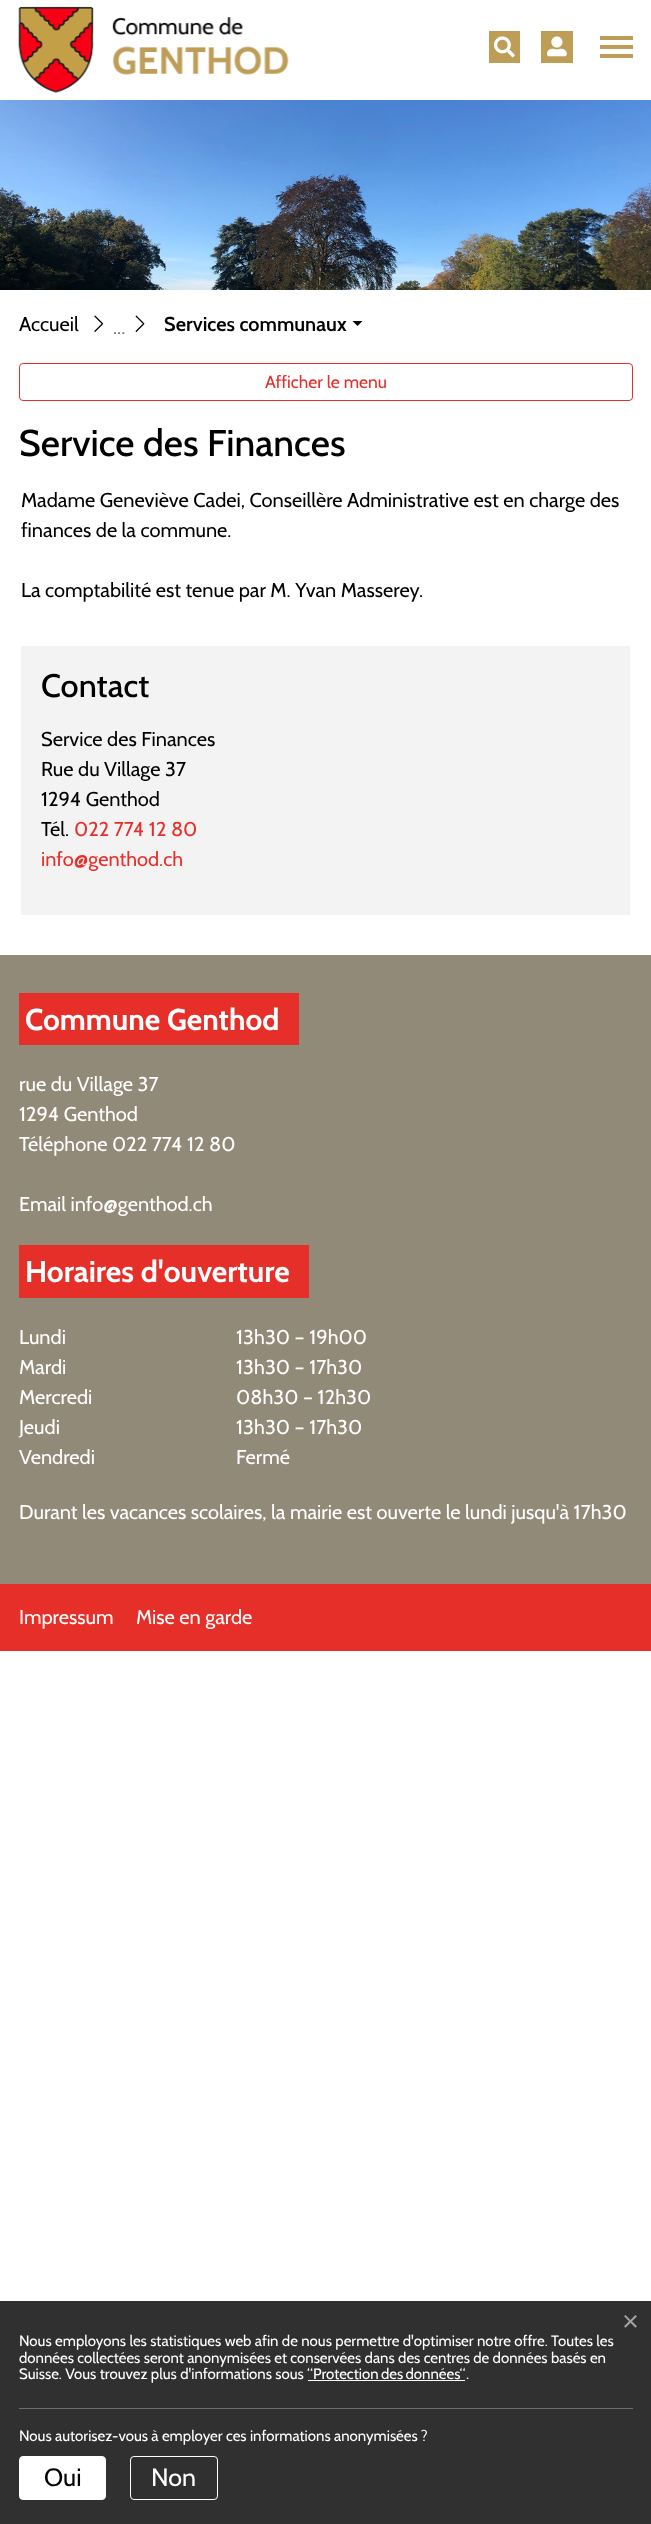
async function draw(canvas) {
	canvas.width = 651;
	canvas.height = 2524;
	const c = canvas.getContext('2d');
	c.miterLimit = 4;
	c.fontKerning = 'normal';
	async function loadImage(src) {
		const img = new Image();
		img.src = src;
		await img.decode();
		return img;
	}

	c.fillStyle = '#fff';
	c.fillRect(0, 0, 651, 2524);
	c.drawImage(await loadImage('img1.png'), 18, 6, 271, 87);
	c.drawImage(await loadImage('img2.png'), 489, 31, 31, 32);
	c.drawImage(await loadImage('img3.png'), 541, 31, 32, 32);
	for (const [x, y, w, h, color] of [
		[600, 36, 33, 4, '#be9e57'],
		[600, 45, 33, 4, '#be9e57'],
		[600, 54, 33, 4, '#be9e57'],
	]) {
		c.fillStyle = color;
		c.fillRect(x, y, w, h);
	}
	c.drawImage(await loadImage('img4.png'), 0, 100, 651, 190);
	c.font = '20px Cabin';
	c.fillStyle = '#000';
	c.fillText('Accueil', 19, 331);
	c.font = '600 20px Cabin';
	c.fillText('Services communaux', 164, 331);
	c.beginPath();
	c.moveTo(352.5, 321);
	c.lineTo(362.5, 321);
	c.lineTo(357.5, 326);
	c.closePath();
	c.fill();
	c.drawImage(await loadImage('img5.png'), 94, 315, 51, 17);
	c.font = '20px Cabin';
	c.fillStyle = '#6c757d';
	c.fillText('...', 113, 334);
	c.beginPath();
	c.roundRect(19.5, 363.5, 613, 37, 3.5);
	c.strokeStyle = '#e62f29';
	c.stroke();
	c.font = '17.5px Cabin';
	c.fillStyle = '#e62f29';
	c.fillText('Afficher le menu', 265, 388);
	c.font = '500 37.25px Cabin';
	c.fillStyle = '#000';
	c.fillText('Service des Finances', 19, 456);
	c.font = '20px Cabin';
	for (const [text, x, y] of [
		['Madame Geneviève Cadei, Conseillère Administrative est en charge des', 21, 507],
		['finances de la commune.', 21, 537],
		['La comptabilité est tenue par M. Yvan Masserey.', 21, 597],
	]) {
		c.fillText(text, x, y);
	}
	c.fillStyle = '#f3f3f3';
	c.fillRect(21, 646, 609, 269);
	c.font = '500 32.5px Cabin';
	c.fillStyle = '#000';
	c.fillText('Contact', 41, 697);
	c.font = '20px Cabin';
	for (const [text, x, y] of [
		['Service des Finances', 41, 746],
		['Rue du Village 37', 41, 776],
		['1294 Genthod', 41, 806],
		['Tél.', 41, 836],
	]) {
		c.fillText(text, x, y);
	}
	c.fillStyle = '#e62f29';
	c.fillText('022 774 12 80', 74, 836);
	c.fillText('info@genthod.ch', 41, 866);
	c.fillStyle = '#928a78';
	c.fillRect(0, 955, 651, 629);
	c.fillStyle = '#e62f29';
	c.fillRect(19, 993, 280, 52);
	c.font = 'bold 30px Cabin';
	c.fillStyle = '#fff';
	c.fillText('Commune Genthod', 25, 1030);
	c.font = '20px Cabin';
	for (const [text, x, y] of [
		['rue du Village 37', 19, 1091],
		['1294 Genthod', 19, 1121],
		['Téléphone 022 774 12 80', 19, 1151],
		['Email info@genthod.ch', 19, 1211],
	]) {
		c.fillText(text, x, y);
	}
	c.fillStyle = '#e62f29';
	c.fillRect(19, 1245, 290, 53);
	c.font = 'bold 30px Cabin';
	c.fillStyle = '#fff';
	c.fillText('Horaires d\'ouverture', 25, 1282);
	c.font = '20px Cabin';
	for (const [text, x, y] of [
		['Lundi', 19, 1344],
		['13h30 – 19h00', 236, 1344],
		['Mardi', 19, 1374],
		['13h30 – 17h30', 236, 1374],
		['Mercredi', 19, 1404],
		['08h30 – 12h30', 236, 1404],
		['Jeudi', 19, 1434],
		['13h30 – 17h30', 236, 1434],
		['Vendredi', 19, 1464],
		['Fermé', 236, 1464],
		['Durant les vacances scolaires, la mairie est ouverte le lundi jusqu\'à 17h30', 19, 1519],
	]) {
		c.fillText(text, x, y);
	}
	c.fillStyle = '#e62f29';
	c.fillRect(0, 1584, 651, 67);
	c.fillStyle = '#fff';
	c.fillText('Impressum', 19, 1624);
	c.fillText('Mise en garde', 136, 1624);
	c.fillStyle = '#303030';
	c.fillRect(0, 2301, 651, 223);
	c.font = '29px Liberation Sans';
	c.fillStyle = '#a2a2a2';
	c.fillText('×', 622, 2331);
	c.fillStyle = '#6d6d6d';
	c.fillRect(19, 2408, 614, 1);
	c.font = '15px Cabin';
	c.fillStyle = '#fff';
	for (const [text, x, y] of [
		['Nous employons les statistiques web afin de nous permettre d\'optimiser notre offre. Toutes les', 19, 2346],
		['données collectées seront anonymisées et conservées dans des centres de données basés en', 19, 2363],
		['Suisse. Vous trouvez plus d\'informations sous', 19, 2379],
	]) {
		c.fillText(text, x, y);
	}
	c.wordSpacing = '-1px';
	c.fillText('“Protection des données“', 307, 2379);
	c.fillRect(308, 2380, 157, 1);
	c.wordSpacing = '0px';
	c.fillText('.', 466, 2379);
	c.fillText('Nous autorisez-vous à employer ces informations anonymisées ?', 19, 2441);
	c.beginPath();
	c.roundRect(19.5, 2456.5, 86, 43, 3.5);
	c.fill();
	c.strokeStyle = '#fff';
	c.stroke();
	c.font = '25px Cabin';
	c.fillStyle = '#000';
	c.fillText('Oui', 44, 2486);
	c.beginPath();
	c.roundRect(130.5, 2456.5, 87, 43, 3.5);
	c.stroke();
	c.fillStyle = '#fff';
	c.fillText('Non', 151, 2486);
}

draw(document.querySelector('canvas'));
